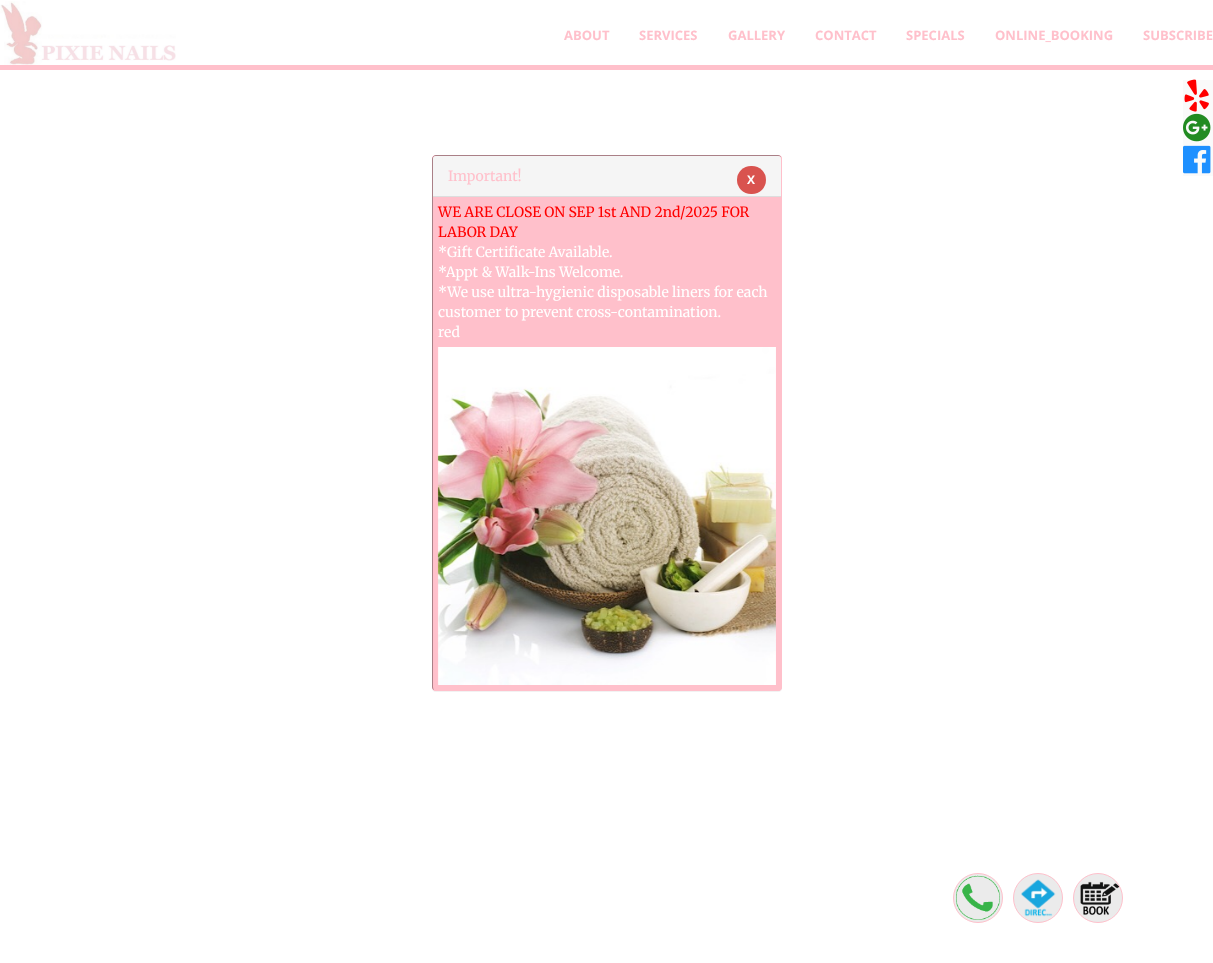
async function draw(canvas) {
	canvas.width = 1213;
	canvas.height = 963;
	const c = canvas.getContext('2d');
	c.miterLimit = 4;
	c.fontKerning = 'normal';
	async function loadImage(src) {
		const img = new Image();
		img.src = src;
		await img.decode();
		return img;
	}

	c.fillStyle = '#fff';
	c.fillRect(0, 0, 1213, 963);
	c.drawImage(await loadImage('img1.png'), 0, 1, 176, 64);
	c.fillStyle = '#ffc0cb';
	c.fillRect(0, 65, 1213, 5);
	c.font = 'bold 13px Open Sans';
	for (const [text, x, y] of [
		['ABOUT', 564, 40],
		['SERVICES', 639, 40],
		['GALLERY', 728, 40],
		['CONTACT', 815, 40],
		['SPECIALS', 906, 40],
		['ONLINE_BOOKING', 995, 40],
		['SUBSCRIBE', 1143, 40],
	]) {
		c.fillText(text, x, y);
	}
	c.fillStyle = '#fafafa';
	c.fillRect(1183, 80, 30, 96);
	c.drawImage(await loadImage('img2.png'), 1184, 79, 25, 33);
	c.drawImage(await loadImage('img3.png'), 1183, 113, 28, 29);
	c.drawImage(await loadImage('img4.png'), 1183, 145, 28, 29);
	c.fillStyle = '#0000000d';
	c.filter = 'blur(0.5px)';
	c.beginPath();
	c.roundRect(432, 156, 350, 536, 4);
	c.fill();
	c.filter = 'none';
	c.fillStyle = '#ffc0cb';
	c.beginPath();
	c.roundRect(432, 155, 350, 536, 4);
	c.fill();
	c.beginPath();
	c.moveTo(780.5, 156.5);
	c.bezierCurveTo(781, 157, 781.5, 158, 781.5, 159);
	c.lineTo(781.5, 687);
	c.bezierCurveTo(781.5, 688, 781, 689, 780.5, 689.5);
	c.bezierCurveTo(780, 690, 779, 690.5, 778, 690.5);
	c.lineTo(436, 690.5);
	c.bezierCurveTo(435, 690.5, 434, 690, 433.5, 689.5);
	c.strokeStyle = '#ffc0cb';
	c.stroke();
	c.beginPath();
	c.moveTo(433.5, 689.5);
	c.bezierCurveTo(433, 689, 432.5, 688, 432.5, 687);
	c.lineTo(432.5, 159);
	c.bezierCurveTo(432.5, 158, 433, 157, 433.5, 156.5);
	c.bezierCurveTo(434, 156, 435, 155.5, 436, 155.5);
	c.lineTo(778, 155.5);
	c.bezierCurveTo(779, 155.5, 780, 156, 780.5, 156.5);
	c.strokeStyle = '#aa8087';
	c.stroke();
	c.fillStyle = '#f5f5f5';
	c.beginPath();
	c.roundRect(433, 156, 348, 41, [3, 3, 0, 0]);
	c.fill();
	c.fillStyle = '#ddd';
	c.fillRect(433, 196, 348, 1);
	c.font = '14px Merriweather';
	c.fillStyle = '#ffc0cb';
	c.fillText('Important!', 448, 181);
	c.fillStyle = '#d9534f';
	c.beginPath();
	c.roundRect(737, 166, 29, 28, 14);
	c.fill();
	c.font = 'bold 12px Open Sans';
	c.fillStyle = '#fff';
	c.fillText('X', 747, 184);
	c.font = '14px Merriweather';
	c.fillStyle = '#f00';
	c.fillText('WE ARE CLOSE ON SEP 1st AND 2nd/2025 FOR', 438, 217);
	c.fillText('LABOR DAY', 438, 237);
	c.fillStyle = '#fff';
	for (const [text, x, y] of [
		['*Gift Certificate Available.', 438, 257],
		['*Appt & Walk-Ins Welcome.', 438, 277],
		['*We use ultra-hygienic disposable liners for each', 438, 297],
		['customer to prevent cross-contamination.', 438, 317],
		['red', 438, 337],
	]) {
		c.fillText(text, x, y);
	}
	c.drawImage(await loadImage('img5.png'), 437, 347, 339, 338);
	c.fillStyle = '#ebebeb';
	c.beginPath();
	c.arc(978, 898, 24.5, 0, 2 * Math.PI);
	c.fill();
	c.strokeStyle = '#ffc0cb';
	c.stroke();
	c.drawImage(await loadImage('img6.png'), 956, 875, 44, 45);
	c.beginPath();
	c.arc(1038, 898, 24.5, 0, 2 * Math.PI);
	c.fill();
	c.stroke();
	c.drawImage(await loadImage('img7.png'), 1021, 879, 35, 38);
	c.beginPath();
	c.arc(1098, 898, 24.5, 0, 2 * Math.PI);
	c.fill();
	c.stroke();
	c.drawImage(await loadImage('img8.png'), 1080, 881, 40, 34);
}

draw(document.querySelector('canvas'));
